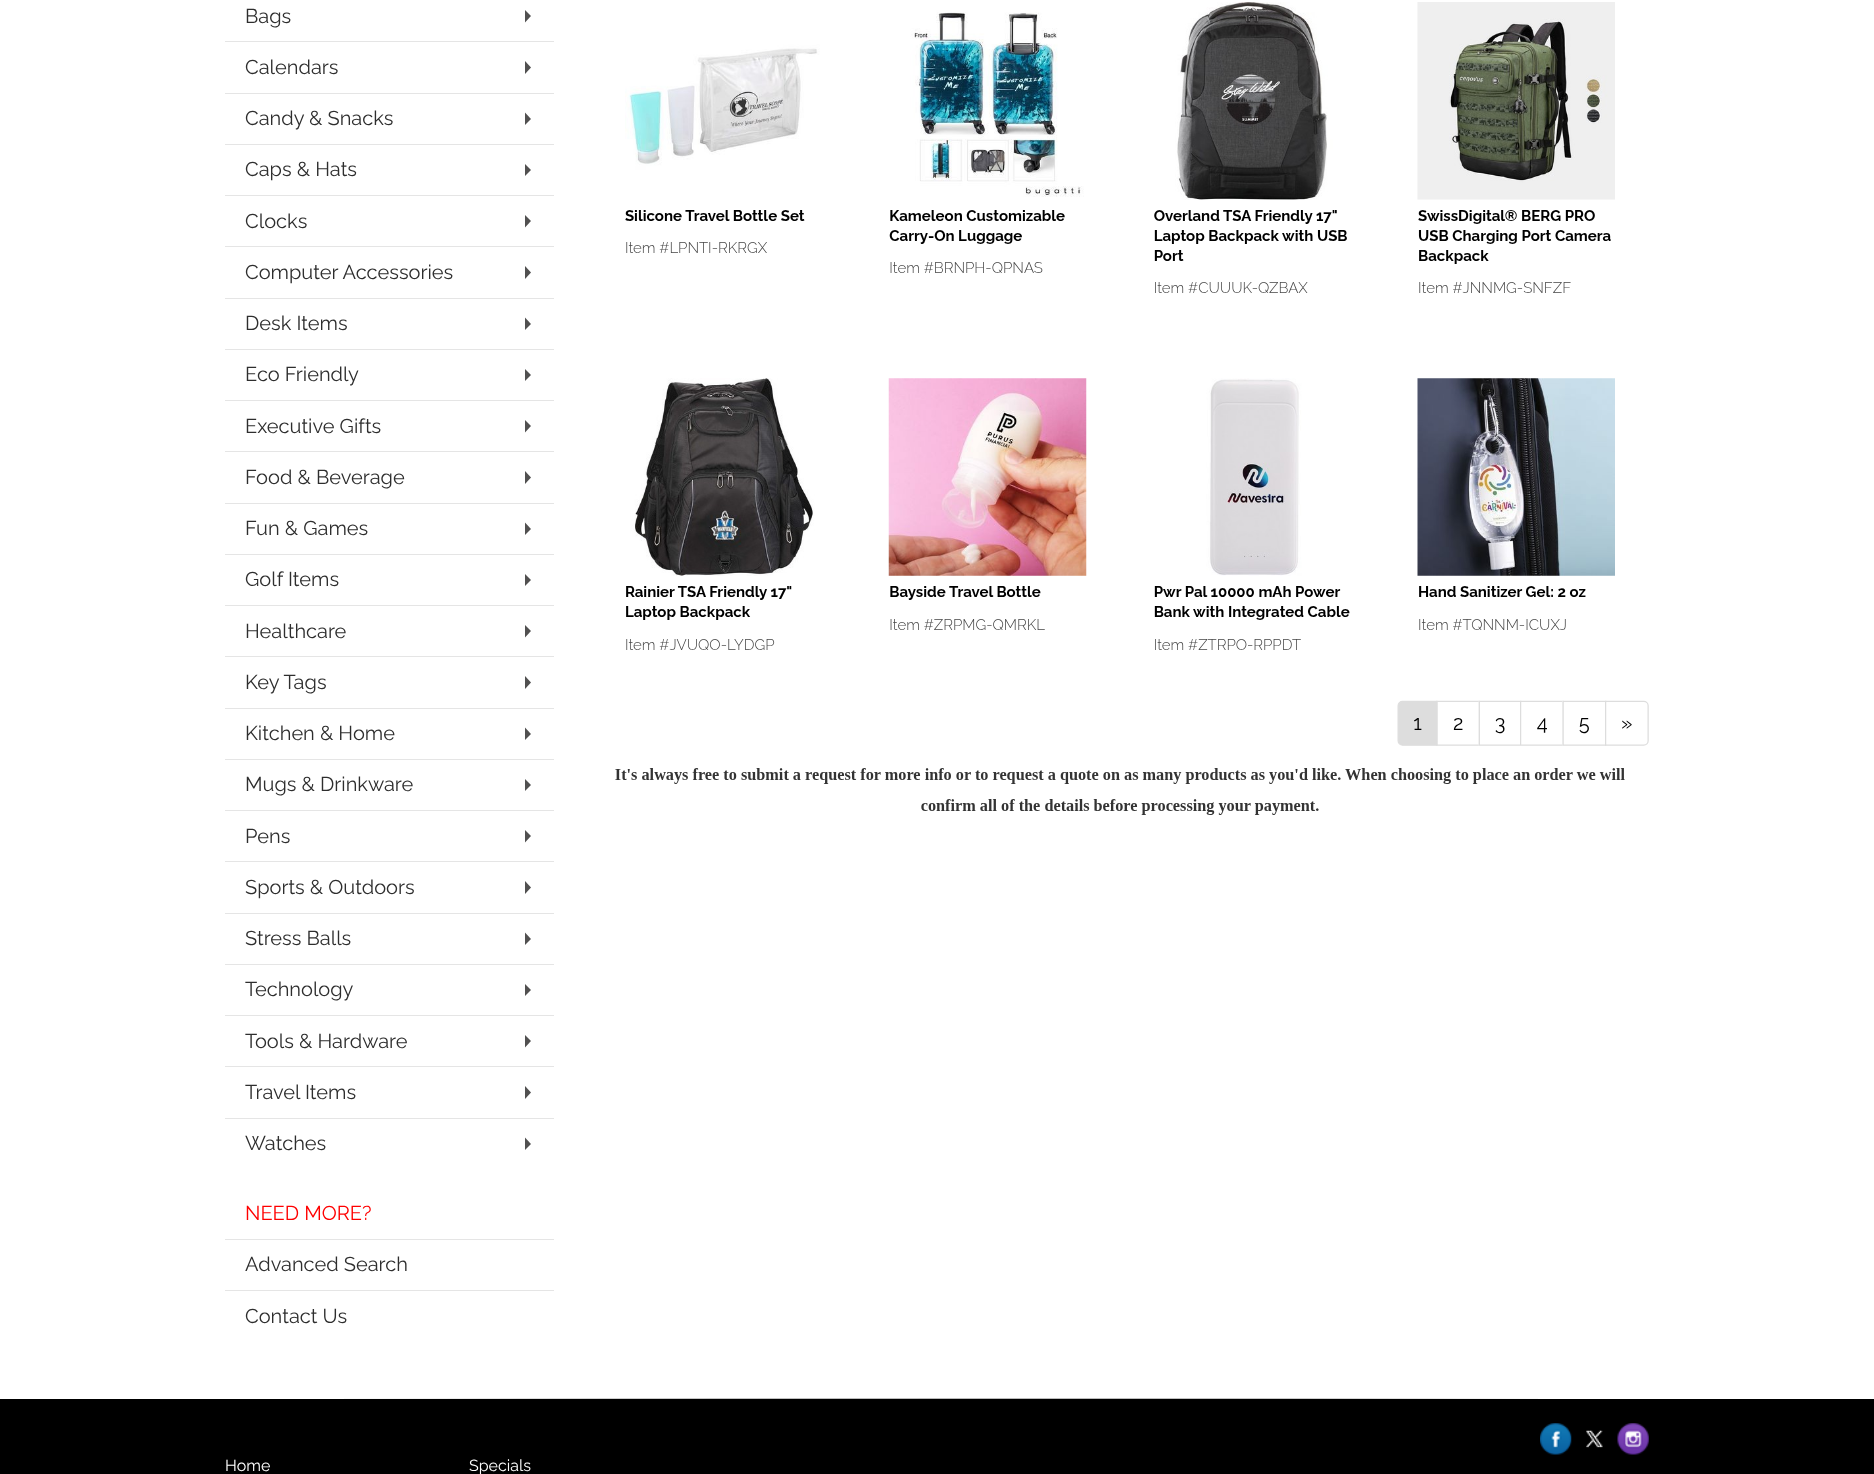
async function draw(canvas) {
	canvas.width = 1874;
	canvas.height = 1474;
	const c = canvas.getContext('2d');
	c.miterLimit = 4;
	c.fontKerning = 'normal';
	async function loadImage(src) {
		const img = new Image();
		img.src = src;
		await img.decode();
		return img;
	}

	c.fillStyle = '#fff';
	c.fillRect(0, 0, 1874, 1474);
	c.font = '100 20px Raleway';
	c.fillStyle = '#2e2e2e';
	c.fillText('Bags', 245, 23);
	c.fillStyle = '#515050';
	c.beginPath();
	c.moveTo(525, 22.5);
	c.lineTo(525, 10);
	c.lineTo(531, 16);
	c.closePath();
	c.fill();
	c.fillStyle = '#e5e5e5';
	c.fillRect(225, 41, 329, 1);
	c.fillStyle = '#2e2e2e';
	c.fillText('Calendars', 245, 74);
	c.fillStyle = '#515050';
	c.beginPath();
	c.moveTo(525, 74);
	c.lineTo(525, 61);
	c.lineTo(531, 67.5);
	c.closePath();
	c.fill();
	c.fillStyle = '#e5e5e5';
	c.fillRect(225, 93, 329, 1);
	c.fillStyle = '#2e2e2e';
	c.fillText('Candy & Snacks', 245, 125);
	c.fillStyle = '#515050';
	c.beginPath();
	c.moveTo(525, 125);
	c.lineTo(525, 112.5);
	c.lineTo(531, 119);
	c.closePath();
	c.fill();
	c.fillStyle = '#e5e5e5';
	c.fillRect(225, 144, 329, 1);
	c.fillStyle = '#2e2e2e';
	c.fillText('Caps & Hats', 245, 176);
	c.fillStyle = '#515050';
	c.beginPath();
	c.moveTo(525, 176);
	c.lineTo(525, 164);
	c.lineTo(531, 170);
	c.closePath();
	c.fill();
	c.fillStyle = '#e5e5e5';
	c.fillRect(225, 195, 329, 1);
	c.fillStyle = '#2e2e2e';
	c.fillText('Clocks', 245, 228);
	c.fillStyle = '#515050';
	c.beginPath();
	c.moveTo(525, 227.5);
	c.lineTo(525, 215);
	c.lineTo(531, 221);
	c.closePath();
	c.fill();
	c.fillStyle = '#e5e5e5';
	c.fillRect(225, 246, 329, 1);
	c.fillStyle = '#2e2e2e';
	c.fillText('Computer Accessories', 245, 279);
	c.fillStyle = '#515050';
	c.beginPath();
	c.moveTo(525, 279);
	c.lineTo(525, 266);
	c.lineTo(531, 272.5);
	c.closePath();
	c.fill();
	c.fillStyle = '#e5e5e5';
	c.fillRect(225, 298, 329, 1);
	c.fillStyle = '#2e2e2e';
	c.fillText('Desk Items', 245, 330);
	c.fillStyle = '#515050';
	c.beginPath();
	c.moveTo(525, 330);
	c.lineTo(525, 317.5);
	c.lineTo(531, 324);
	c.closePath();
	c.fill();
	c.fillStyle = '#e5e5e5';
	c.fillRect(225, 349, 329, 1);
	c.fillStyle = '#2e2e2e';
	c.fillText('Eco Friendly', 245, 381);
	c.fillStyle = '#515050';
	c.beginPath();
	c.moveTo(525, 381);
	c.lineTo(525, 369);
	c.lineTo(531, 375);
	c.closePath();
	c.fill();
	c.fillStyle = '#e5e5e5';
	c.fillRect(225, 400, 329, 1);
	c.fillStyle = '#2e2e2e';
	c.fillText('Executive Gifts', 245, 433);
	c.fillStyle = '#515050';
	c.beginPath();
	c.moveTo(525, 432.5);
	c.lineTo(525, 420);
	c.lineTo(531, 426);
	c.closePath();
	c.fill();
	c.fillStyle = '#e5e5e5';
	c.fillRect(225, 451, 329, 1);
	c.fillStyle = '#2e2e2e';
	c.fillText('Food & Beverage', 245, 484);
	c.fillStyle = '#515050';
	c.beginPath();
	c.moveTo(525, 484);
	c.lineTo(525, 471);
	c.lineTo(531, 477.5);
	c.closePath();
	c.fill();
	c.fillStyle = '#e5e5e5';
	c.fillRect(225, 503, 329, 1);
	c.fillStyle = '#2e2e2e';
	c.fillText('Fun & Games', 245, 535);
	c.fillStyle = '#515050';
	c.beginPath();
	c.moveTo(525, 535);
	c.lineTo(525, 522.5);
	c.lineTo(531, 529);
	c.closePath();
	c.fill();
	c.fillStyle = '#e5e5e5';
	c.fillRect(225, 554, 329, 1);
	c.fillStyle = '#2e2e2e';
	c.fillText('Golf Items', 245, 586);
	c.fillStyle = '#515050';
	c.beginPath();
	c.moveTo(525, 586);
	c.lineTo(525, 574);
	c.lineTo(531, 580);
	c.closePath();
	c.fill();
	c.fillStyle = '#e5e5e5';
	c.fillRect(225, 605, 329, 1);
	c.fillStyle = '#2e2e2e';
	c.fillText('Healthcare', 245, 638);
	c.fillStyle = '#515050';
	c.beginPath();
	c.moveTo(525, 637.5);
	c.lineTo(525, 625);
	c.lineTo(531, 631);
	c.closePath();
	c.fill();
	c.fillStyle = '#e5e5e5';
	c.fillRect(225, 656, 329, 1);
	c.fillStyle = '#2e2e2e';
	c.fillText('Key Tags', 245, 689);
	c.fillStyle = '#515050';
	c.beginPath();
	c.moveTo(525, 689);
	c.lineTo(525, 676);
	c.lineTo(531, 682.5);
	c.closePath();
	c.fill();
	c.fillStyle = '#e5e5e5';
	c.fillRect(225, 708, 329, 1);
	c.fillStyle = '#2e2e2e';
	c.fillText('Kitchen & Home', 245, 740);
	c.fillStyle = '#515050';
	c.beginPath();
	c.moveTo(525, 740);
	c.lineTo(525, 727.5);
	c.lineTo(531, 734);
	c.closePath();
	c.fill();
	c.fillStyle = '#e5e5e5';
	c.fillRect(225, 759, 329, 1);
	c.fillStyle = '#2e2e2e';
	c.fillText('Mugs & Drinkware', 245, 791);
	c.fillStyle = '#515050';
	c.beginPath();
	c.moveTo(525, 791);
	c.lineTo(525, 779);
	c.lineTo(531, 785);
	c.closePath();
	c.fill();
	c.fillStyle = '#e5e5e5';
	c.fillRect(225, 810, 329, 1);
	c.fillStyle = '#2e2e2e';
	c.fillText('Pens', 245, 843);
	c.fillStyle = '#515050';
	c.beginPath();
	c.moveTo(525, 842.5);
	c.lineTo(525, 830);
	c.lineTo(531, 836);
	c.closePath();
	c.fill();
	c.fillStyle = '#e5e5e5';
	c.fillRect(225, 861, 329, 1);
	c.fillStyle = '#2e2e2e';
	c.fillText('Sports & Outdoors', 245, 894);
	c.fillStyle = '#515050';
	c.beginPath();
	c.moveTo(525, 894);
	c.lineTo(525, 881);
	c.lineTo(531, 887.5);
	c.closePath();
	c.fill();
	c.fillStyle = '#e5e5e5';
	c.fillRect(225, 913, 329, 1);
	c.fillStyle = '#2e2e2e';
	c.fillText('Stress Balls', 245, 945);
	c.fillStyle = '#515050';
	c.beginPath();
	c.moveTo(525, 945);
	c.lineTo(525, 932.5);
	c.lineTo(531, 939);
	c.closePath();
	c.fill();
	c.fillStyle = '#e5e5e5';
	c.fillRect(225, 964, 329, 1);
	c.fillStyle = '#2e2e2e';
	c.fillText('Technology', 245, 996);
	c.fillStyle = '#515050';
	c.beginPath();
	c.moveTo(525, 996);
	c.lineTo(525, 984);
	c.lineTo(531, 990);
	c.closePath();
	c.fill();
	c.fillStyle = '#e5e5e5';
	c.fillRect(225, 1015, 329, 1);
	c.fillStyle = '#2e2e2e';
	c.fillText('Tools & Hardware', 245, 1048);
	c.fillStyle = '#515050';
	c.beginPath();
	c.moveTo(525, 1047.5);
	c.lineTo(525, 1035);
	c.lineTo(531, 1041);
	c.closePath();
	c.fill();
	c.fillStyle = '#e5e5e5';
	c.fillRect(225, 1066, 329, 1);
	c.fillStyle = '#2e2e2e';
	c.fillText('Travel Items', 245, 1099);
	c.fillStyle = '#515050';
	c.beginPath();
	c.moveTo(525, 1099);
	c.lineTo(525, 1086);
	c.lineTo(531, 1092.5);
	c.closePath();
	c.fill();
	c.fillStyle = '#e5e5e5';
	c.fillRect(225, 1118, 329, 1);
	c.fillStyle = '#2e2e2e';
	c.fillText('Watches', 245, 1150);
	c.fillStyle = '#515050';
	c.beginPath();
	c.moveTo(525, 1150);
	c.lineTo(525, 1137.5);
	c.lineTo(531, 1144);
	c.closePath();
	c.fill();
	c.fillStyle = '#f00';
	c.fillText('NEED MORE?', 245, 1220);
	c.fillStyle = '#e5e5e5';
	c.fillRect(225, 1239, 329, 1);
	c.fillStyle = '#2e2e2e';
	c.fillText('Advanced Search', 245, 1271);
	c.fillStyle = '#e5e5e5';
	c.fillRect(225, 1290, 329, 1);
	c.fillStyle = '#2e2e2e';
	c.fillText('Contact Us', 245, 1323);
	c.drawImage(await loadImage('img1.png'), 615, 2, 1034, 813);
	c.fillStyle = '#000';
	c.fillRect(0, 1399, 1874, 75);
	c.drawImage(await loadImage('img2.png'), 344, 1398, 1194, 1);
	c.drawImage(await loadImage('img3.png'), 1540, 1423, 32, 32);
	c.drawImage(await loadImage('img4.png'), 1586, 1430, 17, 18);
	c.drawImage(await loadImage('img5.png'), 1617, 1423, 32, 32);
	c.font = '100 16px Raleway';
	c.fillStyle = '#fff';
	c.fillText('Home', 225, 1471);
	c.fillText('Specials', 469, 1471);
}

draw(document.querySelector('canvas'));
